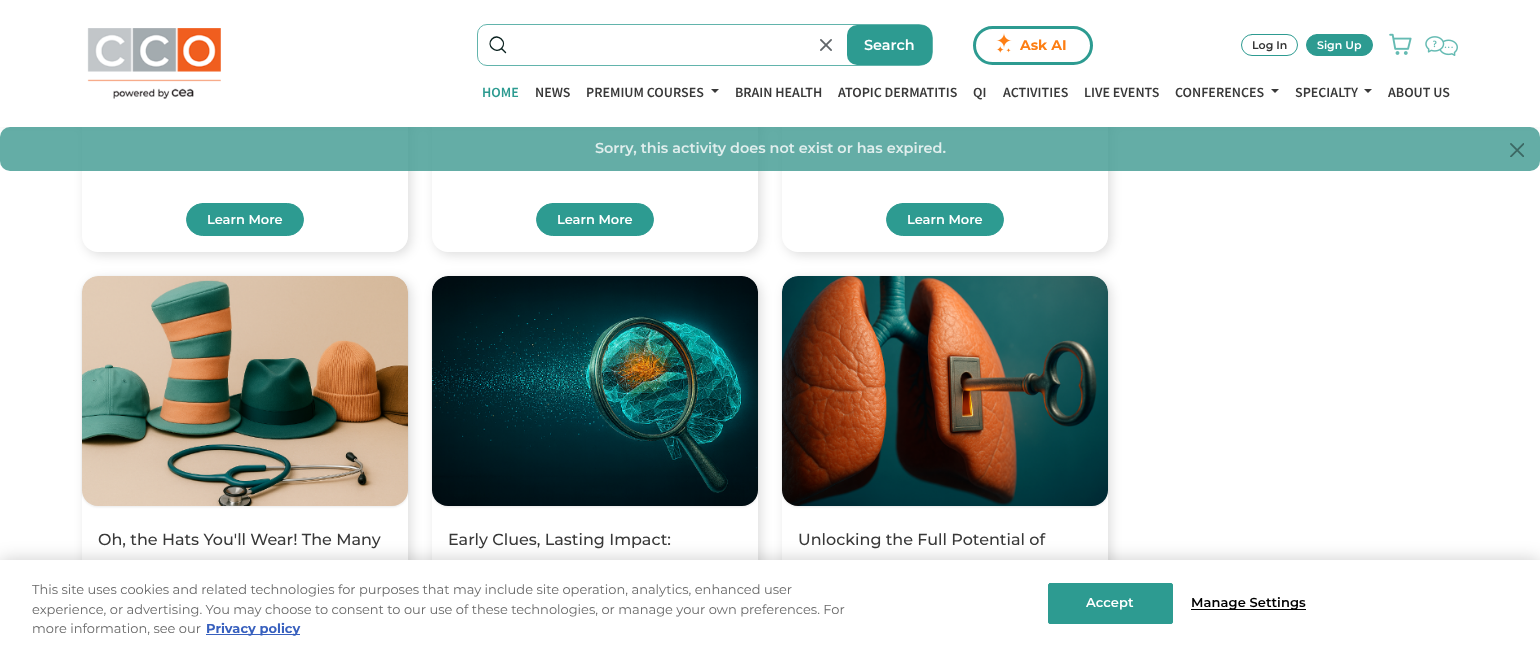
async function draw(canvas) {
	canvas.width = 1540;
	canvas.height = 649;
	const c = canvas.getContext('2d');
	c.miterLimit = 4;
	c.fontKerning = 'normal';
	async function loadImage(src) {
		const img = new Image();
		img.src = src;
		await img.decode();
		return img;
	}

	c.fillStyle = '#fff';
	c.fillRect(0, 0, 1540, 649);
	c.fillStyle = '#00000021';
	c.filter = 'blur(5.5px)';
	c.beginPath();
	c.roundRect(85, -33, 326, 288, 16);
	c.fill();
	c.filter = 'none';
	c.fillStyle = '#fff';
	c.beginPath();
	c.roundRect(82, -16, 326, 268, 16);
	c.fill();
	c.fillStyle = '#00000021';
	c.filter = 'blur(5.5px)';
	c.beginPath();
	c.roundRect(435, -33, 326, 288, 16);
	c.fill();
	c.filter = 'none';
	c.fillStyle = '#fff';
	c.beginPath();
	c.roundRect(432, -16, 326, 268, 16);
	c.fill();
	c.fillStyle = '#00000021';
	c.filter = 'blur(5.5px)';
	c.beginPath();
	c.roundRect(785, -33, 326, 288, 16);
	c.fill();
	c.filter = 'none';
	c.fillStyle = '#fff';
	c.beginPath();
	c.roundRect(782, -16, 326, 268, 16);
	c.fill();
	c.fillStyle = '#0000000a';
	c.filter = 'blur(3px)';
	c.beginPath();
	c.rect(0, 3, 1540, 127);
	c.fill();
	c.filter = 'none';
	c.fillStyle = '#fff';
	c.fillRect(0, 0, 1540, 127);
	c.drawImage(await loadImage('img1.png'), 87, 28, 134, 71);
	c.beginPath();
	c.roundRect(477.5, 24.5, 455, 41, [9.5, 13.5, 13.5, 9.5]);
	c.strokeStyle = '#62b4ac';
	c.stroke();
	c.beginPath();
	c.moveTo(501.5, 48.5);
	c.bezierCurveTo(507.5, 42, 498, 33, 492, 39);
	c.bezierCurveTo(486, 45.5, 495.5, 54, 501.5, 48.5);
	c.closePath();
	c.moveTo(501.5, 48.5);
	c.lineTo(505.5, 52.5);
	c.strokeStyle = '#09201e';
	c.lineWidth = 1.4;
	c.lineCap = 'round';
	c.lineJoin = 'round';
	c.stroke();
	c.drawImage(await loadImage('img2.png'), 820, 39, 12, 12);
	c.fillStyle = '#2d9b91';
	c.beginPath();
	c.roundRect(847, 25, 85, 40, 10);
	c.fill();
	c.font = '600 14.4px Montserrat';
	c.fillStyle = '#fff';
	c.fillText('Search', 864, 50);
	c.beginPath();
	c.roundRect(974.5, 27.5, 117, 36, 18);
	c.strokeStyle = '#2d9b91';
	c.lineWidth = 3;
	c.lineJoin = 'miter';
	c.stroke();
	c.drawImage(await loadImage('img3.png'), 996, 33, 16, 20);
	c.font = 'bold 14px Montserrat';
	c.fillStyle = '#fd7e14';
	c.fillText('Ask AI', 1020, 50);
	c.beginPath();
	c.roundRect(1241.5, 34.5, 56, 21, 10.5);
	c.lineWidth = 1;
	c.stroke();
	c.font = '600 11px Montserrat';
	c.fillStyle = '#333';
	c.fillText('Log In', 1252, 49);
	c.fillStyle = '#2d9b91';
	c.beginPath();
	c.roundRect(1306.5, 34.5, 66, 21, 10.5);
	c.fill();
	c.stroke();
	c.fillStyle = '#fff';
	c.fillText('Sign Up', 1317, 49);
	c.drawImage(await loadImage('img4.png'), 1389, 33, 23, 22);
	c.drawImage(await loadImage('img5.png'), 1425, 36, 33, 20);
	c.font = '600 14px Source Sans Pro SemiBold';
	c.fillStyle = '#2d9b91';
	c.fillText('HOME', 482, 97);
	c.fillStyle = '#393939';
	c.fillText('NEWS', 535, 97);
	c.fillText('PREMIUM COURSES', 586, 97);
	c.beginPath();
	c.moveTo(711, 89);
	c.lineTo(719, 89);
	c.lineTo(715, 93);
	c.closePath();
	c.fill();
	for (const [text, x, y] of [
		['BRAIN HEALTH', 735, 97],
		['ATOPIC DERMATITIS', 838, 97],
		['QI', 973, 97],
		['ACTIVITIES', 1003, 97],
		['LIVE EVENTS', 1084, 97],
		['CONFERENCES', 1175, 97],
	]) {
		c.fillText(text, x, y);
	}
	c.beginPath();
	c.moveTo(1271, 89);
	c.lineTo(1279, 89);
	c.lineTo(1275, 93);
	c.closePath();
	c.fill();
	c.fillText('SPECIALTY', 1295, 97);
	c.beginPath();
	c.moveTo(1364, 89);
	c.lineTo(1372, 89);
	c.lineTo(1368, 93);
	c.closePath();
	c.fill();
	c.fillText('ABOUT US', 1388, 97);
	c.fillStyle = '#3d9890cc';
	c.beginPath();
	c.roundRect(0, 127, 1540, 44, 10);
	c.fill();
	c.font = '600 14.4px Montserrat';
	c.fillStyle = '#e0eeed';
	c.fillText('Sorry, this activity does not exist or has expired.', 595, 153);
	c.drawImage(await loadImage('img6.png'), 1510, 143, 14, 14);
	c.fillStyle = '#2d9b91';
	c.beginPath();
	c.roundRect(186.5, 203.5, 117, 32, 16);
	c.fill();
	c.stroke();
	c.font = '600 13px Montserrat';
	c.fillStyle = '#fff';
	c.fillText('Learn More', 207, 224);
	c.fillStyle = '#2d9b91';
	c.beginPath();
	c.roundRect(536.5, 203.5, 117, 32, 16);
	c.fill();
	c.stroke();
	c.fillStyle = '#fff';
	c.fillText('Learn More', 557, 224);
	c.fillStyle = '#2d9b91';
	c.beginPath();
	c.roundRect(886.5, 203.5, 117, 32, 16);
	c.fill();
	c.stroke();
	c.fillStyle = '#fff';
	c.fillText('Learn More', 907, 224);
	c.fillStyle = '#00000021';
	c.filter = 'blur(5.5px)';
	c.beginPath();
	c.roundRect(85, 279, 326, 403, 16);
	c.fill();
	c.filter = 'none';
	c.fillStyle = '#fff';
	c.beginPath();
	c.roundRect(82, 276, 326, 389, 16);
	c.fill();
	c.fillStyle = '#00000017';
	c.filter = 'blur(1px)';
	c.beginPath();
	c.roundRect(82, 277, 326, 230, 16);
	c.fill();
	c.filter = 'none';
	c.drawImage(await loadImage('img7.png'), 82, 276, 326, 230);
	c.font = '500 16px Montserrat';
	c.fillStyle = '#393939';
	c.fillText('Oh, the Hats You\'ll Wear! The Many', 98, 545);
	c.fillStyle = '#00000021';
	c.filter = 'blur(5.5px)';
	c.beginPath();
	c.roundRect(435, 279, 326, 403, 16);
	c.fill();
	c.filter = 'none';
	c.fillStyle = '#fff';
	c.beginPath();
	c.roundRect(432, 276, 326, 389, 16);
	c.fill();
	c.fillStyle = '#00000017';
	c.filter = 'blur(1px)';
	c.beginPath();
	c.roundRect(432, 277, 326, 230, 16);
	c.fill();
	c.filter = 'none';
	c.drawImage(await loadImage('img8.png'), 432, 276, 326, 230);
	c.fillStyle = '#393939';
	c.fillText('Early Clues, Lasting Impact:', 448, 545);
	c.fillStyle = '#00000021';
	c.filter = 'blur(5.5px)';
	c.beginPath();
	c.roundRect(785, 279, 326, 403, 16);
	c.fill();
	c.filter = 'none';
	c.fillStyle = '#fff';
	c.beginPath();
	c.roundRect(782, 276, 326, 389, 16);
	c.fill();
	c.fillStyle = '#00000017';
	c.filter = 'blur(1px)';
	c.beginPath();
	c.roundRect(782, 277, 326, 230, 16);
	c.fill();
	c.filter = 'none';
	c.drawImage(await loadImage('img9.png'), 782, 276, 326, 230);
	c.fillStyle = '#393939';
	c.fillText('Unlocking the Full Potential of', 798, 545);
	c.fillStyle = '#00000033';
	c.filter = 'blur(9px)';
	c.beginPath();
	c.rect(0, 560, 1540, 89);
	c.fill();
	c.filter = 'none';
	c.fillStyle = '#fff';
	c.fillRect(0, 560, 1540, 89);
	c.font = '13px Montserrat';
	c.fillStyle = '#696969';
	for (const [text, x, y] of [
		['This site uses cookies and related technologies for purposes that may include site operation, analytics, enhanced user', 32, 594],
		['experience, or advertising. You may choose to consent to our use of these technologies, or manage your own preferences. For', 32, 614],
		['more information, see our', 32, 633],
	]) {
		c.fillText(text, x, y);
	}
	c.fillStyle = '#3860be';
	c.fillRect(206, 634, 94, 1);
	c.font = 'bold 13px Montserrat';
	c.fillText('Privacy policy', 206, 633);
	c.fillStyle = '#2d9b91';
	c.beginPath();
	c.roundRect(1048.5, 583.5, 124, 40, 1.5);
	c.fill();
	c.stroke();
	c.letterSpacing = '0.1px';
	c.font = '600 13px Montserrat';
	c.fillStyle = '#fff';
	c.fillText('Accept', 1086, 607);
	c.fillStyle = '#000';
	c.fillRect(1191, 609, 115, 1);
	c.fillText('Manage Settings', 1191, 607);
}

draw(document.querySelector('canvas'));
